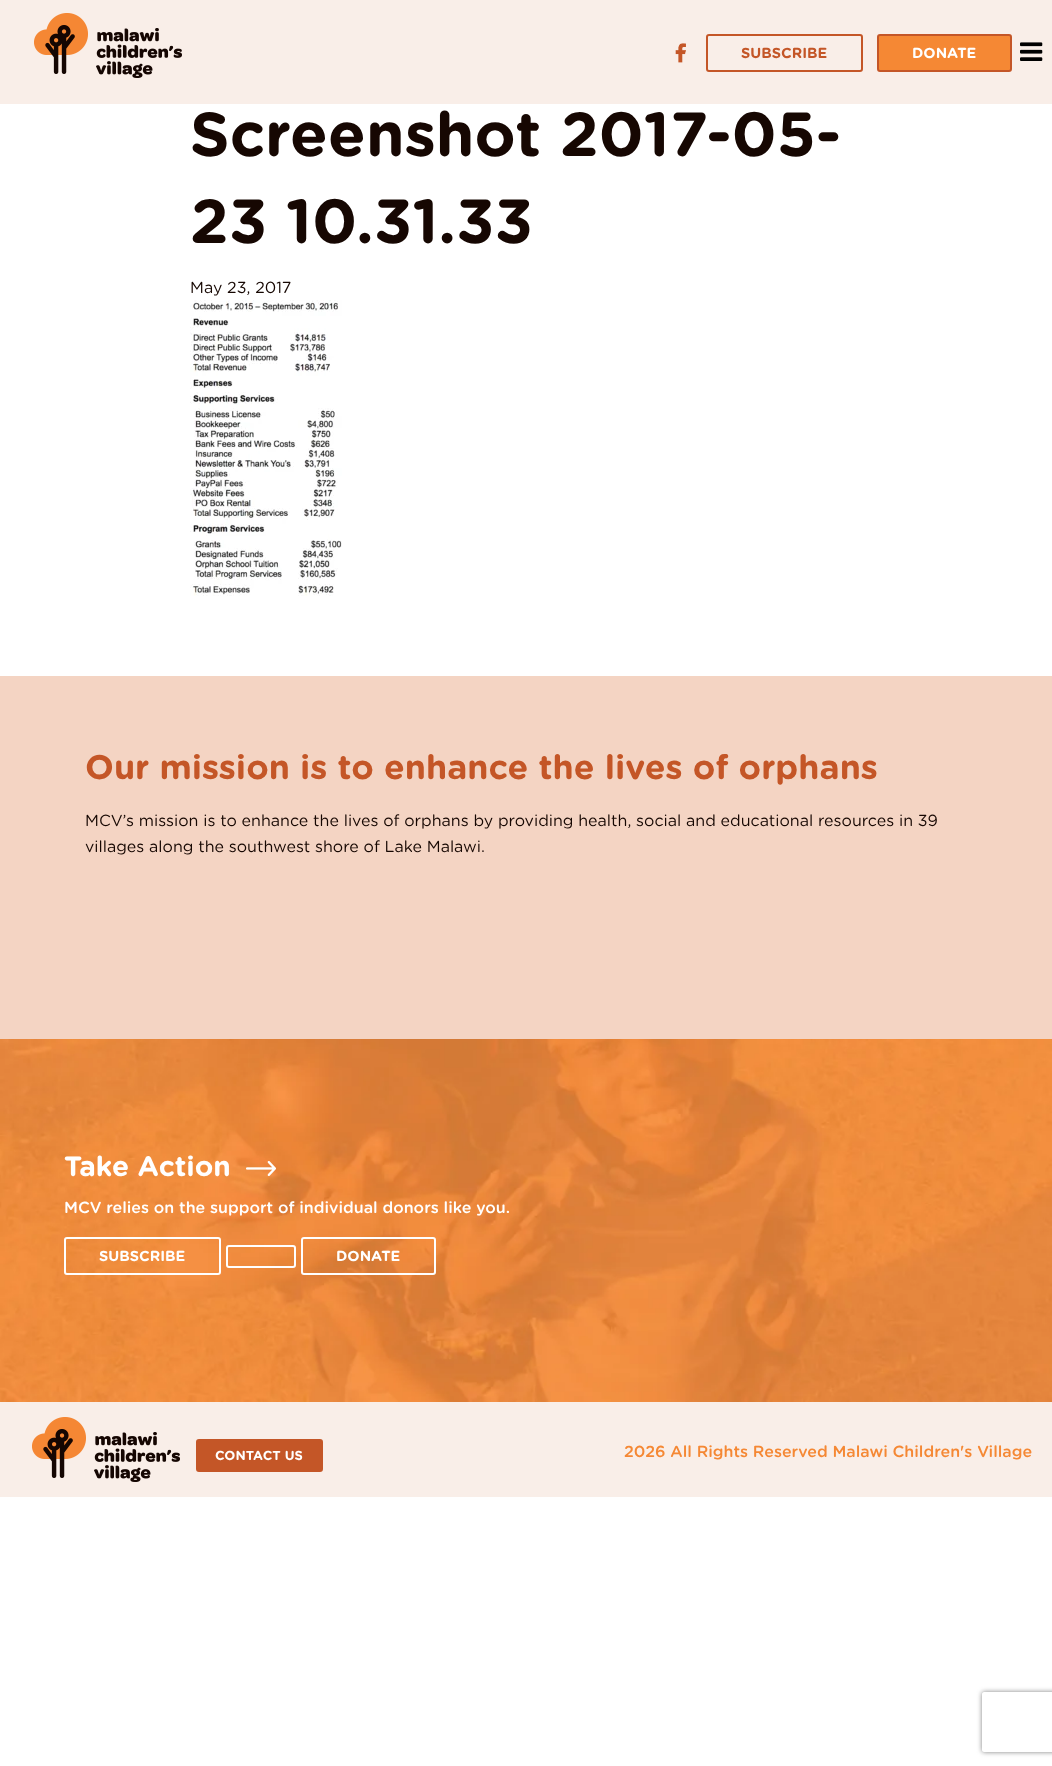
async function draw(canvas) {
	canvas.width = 1052;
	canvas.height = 1766;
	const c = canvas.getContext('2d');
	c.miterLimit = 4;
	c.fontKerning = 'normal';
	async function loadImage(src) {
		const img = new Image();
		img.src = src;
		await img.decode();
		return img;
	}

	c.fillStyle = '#fff';
	c.fillRect(0, 0, 1052, 1766);
	c.fillStyle = '#f9eee8';
	c.fillRect(0, 0, 1052, 104);
	c.drawImage(await loadImage('img1.png'), 34, 13, 148, 65);
	c.drawImage(await loadImage('img2.png'), 675, 43, 11, 20);
	c.beginPath();
	c.roundRect(707, 35, 155, 36, 2);
	c.strokeStyle = '#c45627';
	c.lineWidth = 2;
	c.stroke();
	c.font = 'bold 14.5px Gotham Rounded';
	c.fillStyle = '#c45627';
	c.fillText('SUBSCRIBE', 741, 58);
	c.fillStyle = '#f58834';
	c.beginPath();
	c.roundRect(878, 35, 133, 36, 2);
	c.fill();
	c.stroke();
	c.fillStyle = '#fff';
	c.fillText('DONATE', 912, 58);
	c.drawImage(await loadImage('img3.png'), 1020, 42, 23, 19);
	c.font = 'bold 62px Gotham Rounded';
	c.fillStyle = '#160702';
	c.fillText('Screenshot 2017-05-', 190, 156);
	c.fillText('23 10.31.33', 190, 243);
	c.font = '16px Gotham Rounded';
	c.fillText('May 23, 2017', 190, 293);
	c.drawImage(await loadImage('img4.png'), 190, 300, 152, 296);
	c.fillStyle = '#f4d4c3';
	c.fillRect(0, 676, 1052, 363);
	c.font = 'bold 34px Gotham Rounded';
	c.fillStyle = '#c45627';
	c.fillText('Our mission is to enhance the lives of orphans', 85, 779);
	c.font = '16px Gotham Rounded';
	c.fillStyle = '#160702';
	c.fillText('MCV’s mission is to enhance the lives of orphans by providing health, social and educational resources in 39', 85, 826);
	c.fillText('villages along the southwest shore of Lake Malawi.', 85, 852);
	c.drawImage(await loadImage('img5.png'), 0, 1039, 1052, 363);
	c.font = 'bold 28px Gotham Rounded';
	c.fillStyle = '#fff';
	c.fillText('Take Action', 64, 1176);
	c.drawImage(await loadImage('img6.png'), 246, 1161, 30, 15);
	c.font = '500 16px Gotham Rounded';
	c.fillText('MCV relies on the support of individual donors like you.', 64, 1213);
	c.beginPath();
	c.roundRect(65, 1238, 155, 36, 2);
	c.strokeStyle = '#fff';
	c.stroke();
	c.font = 'bold 14.5px Gotham Rounded';
	c.fillText('SUBSCRIBE', 99, 1261);
	c.beginPath();
	c.roundRect(227, 1246, 68, 21, 2);
	c.stroke();
	c.beginPath();
	c.roundRect(302, 1238, 133, 36, 2);
	c.stroke();
	c.fillText('DONATE', 336, 1261);
	c.fillStyle = '#f9eee8';
	c.fillRect(0, 1402, 1052, 95);
	c.drawImage(await loadImage('img1.png'), 32, 1417, 148, 65);
	c.fillStyle = '#c45627';
	c.beginPath();
	c.roundRect(197, 1440, 125, 31, 2);
	c.fill();
	c.strokeStyle = '#c45627';
	c.stroke();
	c.font = 'bold 13px Gotham Rounded';
	c.fillStyle = '#fff';
	c.fillText('CONTACT US', 215, 1460);
	c.font = '500 16px Gotham Rounded';
	c.fillStyle = '#f58834';
	c.fillText('2026 All Rights Reserved Malawi Children\'s Village', 624, 1457);
	c.save();
	c.beginPath();
	c.moveTo(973, 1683);
	c.lineTo(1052, 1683);
	c.lineTo(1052, 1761);
	c.lineTo(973, 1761);
	c.closePath();
	c.moveTo(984, 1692);
	c.lineTo(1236, 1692);
	c.bezierCurveTo(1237, 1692, 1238, 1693, 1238, 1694);
	c.lineTo(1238, 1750);
	c.bezierCurveTo(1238, 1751, 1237, 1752, 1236, 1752);
	c.lineTo(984, 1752);
	c.bezierCurveTo(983, 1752, 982, 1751, 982, 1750);
	c.lineTo(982, 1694);
	c.bezierCurveTo(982, 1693, 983, 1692, 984, 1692);
	c.closePath();
	c.clip('evenodd');
	c.fillStyle = '#808080';
	c.filter = 'blur(2.5px)';
	c.beginPath();
	c.roundRect(982, 1692, 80, 60, 2);
	c.fill();
	c.filter = 'none';
	c.restore();
}

draw(document.querySelector('canvas'));
